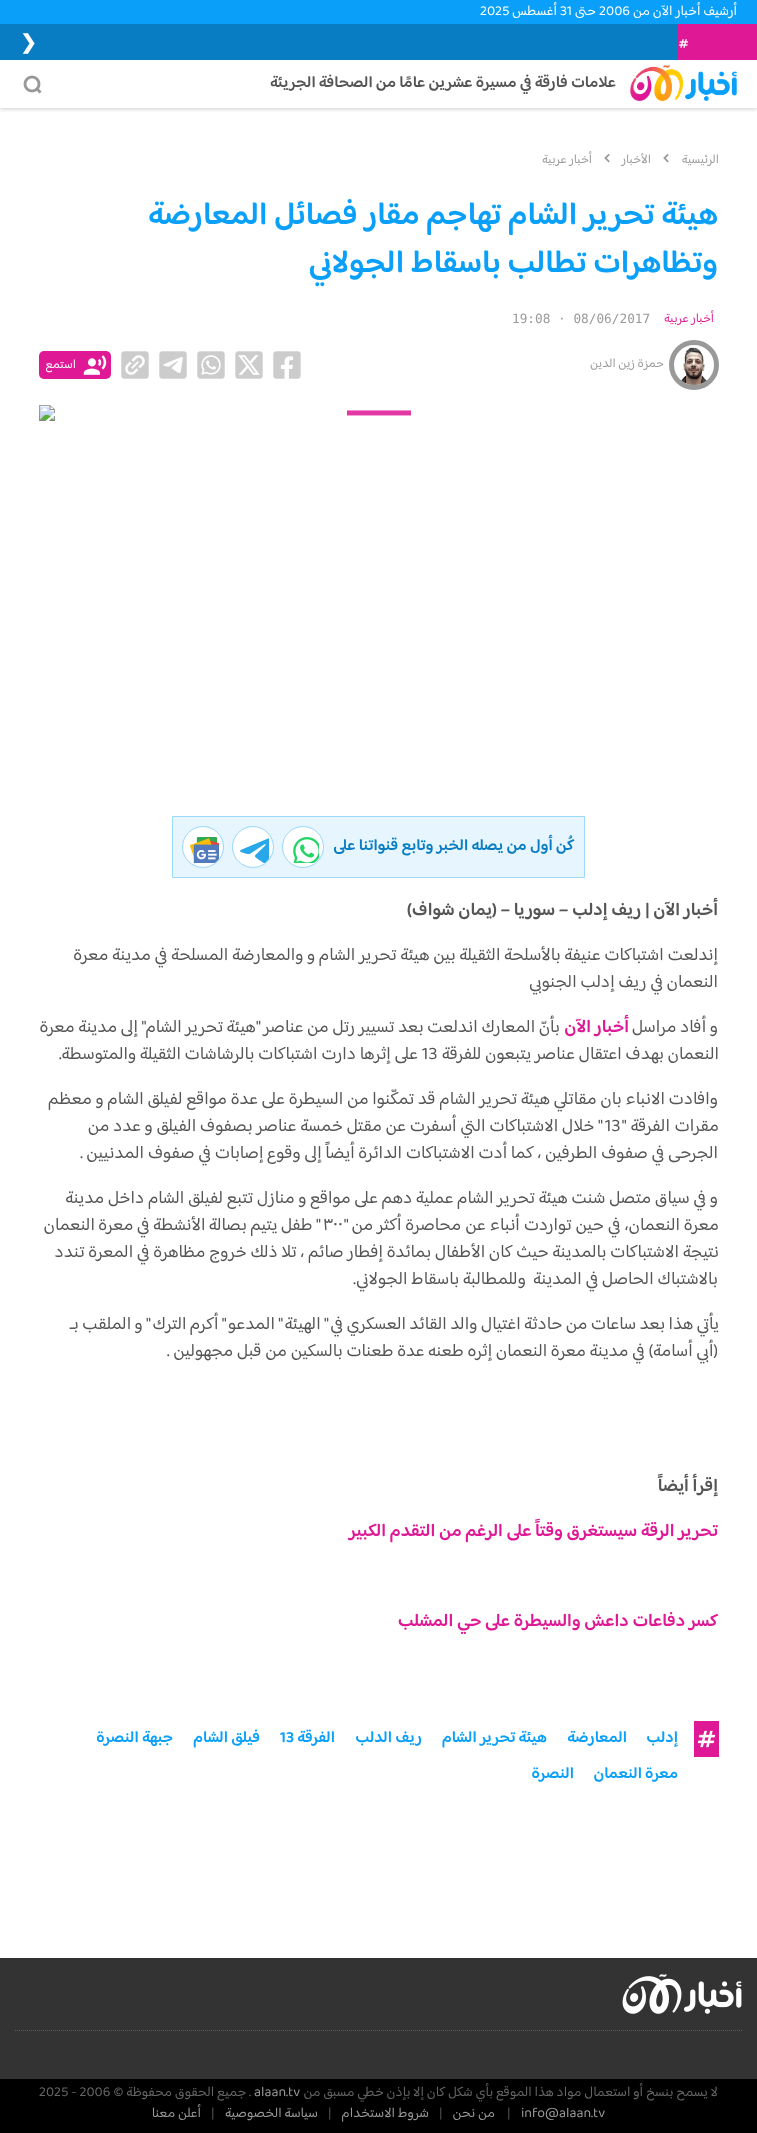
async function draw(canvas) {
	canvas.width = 757;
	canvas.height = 2133;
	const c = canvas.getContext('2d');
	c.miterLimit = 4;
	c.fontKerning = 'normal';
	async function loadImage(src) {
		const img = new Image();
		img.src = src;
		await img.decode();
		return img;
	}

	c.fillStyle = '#fff';
	c.fillRect(0, 0, 757, 2133);
	c.fillStyle = '#0aa0fa';
	c.fillRect(0, 0, 757, 24);
	c.direction = 'rtl';
	c.font = '14px "Baloo Bhaijaan 2"';
	c.fillStyle = '#fff';
	c.fillText('أرشيف أخبار الآن من', 737, 15);
	c.direction = 'ltr';
	c.fillText('2006', 599, 15);
	c.direction = 'rtl';
	c.fillText('حتى', 596, 15);
	c.direction = 'ltr';
	c.fillText('31', 560, 15);
	c.direction = 'rtl';
	c.fillText('أغسطس', 557, 15);
	c.direction = 'ltr';
	c.fillText('2025', 480, 15);
	c.save();
	c.beginPath();
	c.rect(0, 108, 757, 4);
	c.clip();
	c.fillStyle = '#00000033';
	c.filter = 'blur(2px)';
	c.beginPath();
	c.rect(0, 61, 757, 48);
	c.fill();
	c.filter = 'none';
	c.restore();
	c.fillStyle = '#087dc3';
	c.fillRect(0, 24, 677, 36);
	c.fillStyle = '#df1995';
	c.fillRect(677, 24, 80, 36);
	c.drawImage(await loadImage('img1.png'), 679, 39, 10, 9);
	c.font = 'bold 20px DejaVu Sans';
	c.fillStyle = '#fff';
	c.fillText('❯', 20, 49);
	c.drawImage(await loadImage('img2.png'), 630, 65, 107, 36);
	c.direction = 'rtl';
	c.font = '600 16px "Baloo Bhaijaan 2"';
	c.fillStyle = '#555';
	c.fillText('علامات فارقة في مسيرة عشرين عامًا من الصحافة الجريئة', 616, 87);
	c.drawImage(await loadImage('img3.png'), 23, 75, 19, 19);
	c.font = '12.75px "Baloo Bhaijaan 2"';
	c.fillStyle = '#999';
	c.fillText('الرئيسية', 719, 163);
	c.drawImage(await loadImage('img4.png'), 663, 153, 6, 10);
	c.fillText('الأخبار', 651, 163);
	c.drawImage(await loadImage('img4.png'), 604, 153, 6, 10);
	c.fillText('أخبار عربية', 592, 163);
	c.font = '600 32px "Baloo Bhaijaan 2"';
	c.fillStyle = '#0aa0fa';
	c.fillText('هيئة تحرير الشام تهاجم مقار فصائل المعارضة', 718, 224);
	c.fillText('وتظاهرات تطالب باسقاط الجولاني', 718, 272);
	c.font = '12.75px "Baloo Bhaijaan 2"';
	c.fillStyle = '#df1995';
	c.fillText('أخبار عربية', 714, 322);
	c.direction = 'ltr';
	c.font = '12.75px DejaVu Sans Mono';
	c.fillStyle = '#999';
	c.fillText('19:08 · 08/06/2017', 512, 323);
	c.drawImage(await loadImage('img5.png'), 681, 347, 26, 38);
	c.beginPath();
	c.arc(694, 365, 22.5, 0, 2 * Math.PI);
	c.strokeStyle = '#00000066';
	c.lineWidth = 5;
	c.stroke();
	c.direction = 'rtl';
	c.font = '12.75px "Baloo Bhaijaan 2"';
	c.fillText('حمزة زين الدين', 664, 367);
	c.drawImage(await loadImage('img6.png'), 273, 351, 28, 28);
	c.drawImage(await loadImage('img7.png'), 235, 351, 28, 28);
	c.drawImage(await loadImage('img8.png'), 197, 351, 28, 28);
	c.drawImage(await loadImage('img9.png'), 159, 351, 28, 28);
	c.drawImage(await loadImage('img10.png'), 121, 351, 28, 28);
	c.fillStyle = '#df1996';
	c.beginPath();
	c.roundRect(39, 351, 72, 28, 5);
	c.fill();
	c.drawImage(await loadImage('img11.png'), 83, 355, 24, 20);
	c.fillStyle = '#fff';
	c.fillText('استمع', 76, 368);
	c.drawImage(await loadImage('img12.png'), 39, 405, 372, 16);
	c.fillStyle = '#e6f5fe';
	c.beginPath();
	c.rect(172.5, 816.5, 412, 61);
	c.fill();
	c.strokeStyle = '#9dd9fd';
	c.lineWidth = 1;
	c.stroke();
	c.font = '600 16px "Baloo Bhaijaan 2"';
	c.fillStyle = '#087dc3';
	c.fillText('كُن أول من يصله الخبر وتابع قنواتنا على', 574, 850);
	c.fillStyle = '#fff';
	c.beginPath();
	c.arc(303, 847, 20, 0, 2 * Math.PI);
	c.fill();
	c.drawImage(await loadImage('img13.png'), 293, 837, 26, 26);
	c.beginPath();
	c.arc(303, 847, 20.5, 0, 2 * Math.PI);
	c.stroke();
	c.beginPath();
	c.arc(253, 847, 20, 0, 2 * Math.PI);
	c.fill();
	c.drawImage(await loadImage('img14.png'), 240, 838, 29, 25);
	c.beginPath();
	c.arc(253, 847, 20.5, 0, 2 * Math.PI);
	c.stroke();
	c.beginPath();
	c.arc(203, 847, 20, 0, 2 * Math.PI);
	c.fill();
	c.drawImage(await loadImage('img15.png'), 189, 837, 30, 26);
	c.beginPath();
	c.arc(203, 847, 20.5, 0, 2 * Math.PI);
	c.stroke();
	c.font = '600 18px "Baloo Bhaijaan 2"';
	c.fillStyle = '#555';
	c.fillText('أخبار الآن | ريف إدلب – سوريا – (يمان شواف)', 718, 915);
	c.font = '18px "Baloo Bhaijaan 2"';
	for (const [text, x, y] of [
		['إندلعت اشتباكات عنيفة بالأسلحة الثقيلة بين هيئة تحرير الشام و والمعارضة المسلحة في مدينة معرة', 718, 960],
		['النعمان في ريف إدلب الجنوبي', 718, 987],
		['و أفاد مراسل', 718, 1032],
	]) {
		c.fillText(text, x, y);
	}
	c.font = '600 18px "Baloo Bhaijaan 2"';
	c.fillStyle = '#df1995';
	c.fillText('أخبار الآن', 629, 1032);
	c.wordSpacing = '-0.1px';
	c.font = '18px "Baloo Bhaijaan 2"';
	c.fillStyle = '#555';
	c.fillText('بأنّ المعارك اندلعت بعد تسيير رتل من عناصر "هيئة تحرير الشام" إلى مدينة معرة', 560, 1032);
	c.wordSpacing = '0px';
	c.fillText('النعمان بهدف اعتقال عناصر يتبعون للفرقة', 719, 1059);
	c.direction = 'ltr';
	c.fillText('13', 422, 1059);
	c.direction = 'rtl';
	c.fillText('على إثرها دارت اشتباكات بالرشاشات الثقيلة والمتوسطة.', 418, 1059);
	c.fillText('وافادت الانباء بان مقاتلي هيئة تحرير الشام قد تمكّنوا من السيطرة على عدة مواقع لفيلق الشام و معظم', 718, 1104);
	c.wordSpacing = '1px';
	c.fillText('مقرات الفرقة "', 719, 1131);
	c.wordSpacing = '0px';
	c.direction = 'ltr';
	c.fillText('13', 605, 1131);
	c.direction = 'rtl';
	for (const [text, x, y] of [
		['" خلال الاشتباكات التي أسفرت عن مقتل خمسة عناصر بصفوف الفيلق و عدد من', 602, 1131],
		['الجرحى في صفوف الطرفين ، كما أدت الاشتباكات الدائرة أيضاً إلى وقوع إصابات في صفوف المدنيين .', 718, 1158],
		['و في سياق متصل شنت هيئة تحرير الشام عملية دهم على مواقع و منازل تتبع لفيلق الشام داخل مدينة', 718, 1203],
	]) {
		c.fillText(text, x, y);
	}
	c.wordSpacing = '0.25px';
	c.fillText('معرة النعمان، في حين تواردت أنباء عن محاصرة أكثر من "', 719, 1230);
	c.wordSpacing = '0px';
	c.direction = 'ltr';
	c.fillText('٣٠٠', 323, 1230);
	c.wordSpacing = '-0.25px';
	c.direction = 'rtl';
	c.fillText('" طفل يتيم بصالة الأنشطة في معرة النعمان', 320, 1230);
	c.wordSpacing = '0px';
	c.fillText('نتيجة الاشتباكات بالمدينة حيث كان الأطفال بمائدة إفطار صائم ، تلا ذلك خروج مظاهرة في المعرة تندد', 719, 1257);
	c.fillText('بالاشتباك الحاصل في المدينة  وللمطالبة باسقاط الجولاني.', 718, 1284);
	c.wordSpacing = '-0.3px';
	c.fillText('يأتي هذا بعد ساعات من حادثة اغتيال والد القائد العسكري في " الهيئة " المدعو " أكرم الترك " و الملقب بـ', 719, 1329);
	c.wordSpacing = '0px';
	c.fillText('(أبي أسامة) في مدينة معرة النعمان إثره طعنه عدة طعنات بالسكين من قبل مجهولين .', 718, 1356);
	c.font = '600 18px "Baloo Bhaijaan 2"';
	c.fillText('إقرأ أيضاً', 718, 1491);
	c.fillStyle = '#df1995';
	c.fillText('تحرير الرقة سيستغرق وقتاً على الرغم من التقدم الكبير', 718, 1536);
	c.fillText('كسر دفاعات داعش والسيطرة على حي المشلب', 718, 1626);
	c.fillRect(694, 1721, 25, 36);
	c.drawImage(await loadImage('img16.png'), 697, 1730, 19, 18);
	c.font = '600 16px "Baloo Bhaijaan 2"';
	c.fillStyle = '#0aa0fa';
	for (const [text, x, y] of [
		['إدلب', 678, 1742],
		['المعارضة', 627, 1742],
		['هيئة تحرير الشام', 547, 1742],
		['ريف الدلب', 422, 1742],
		['الفرقة', 335, 1742],
	]) {
		c.fillText(text, x, y);
	}
	c.direction = 'ltr';
	c.fillText('13', 280, 1742);
	c.direction = 'rtl';
	for (const [text, x, y] of [
		['فيلق الشام', 260, 1742],
		['جبهة النصرة', 173, 1742],
		['معرة النعمان', 678, 1778],
		['النصرة', 574, 1778],
	]) {
		c.fillText(text, x, y);
	}
	c.fillStyle = '#333';
	c.fillRect(0, 1958, 757, 121);
	c.drawImage(await loadImage('img17.png'), 622, 1974, 120, 40);
	c.beginPath();
	c.moveTo(15, 2030.5);
	c.lineTo(742, 2030.5);
	c.strokeStyle = '#5c5c5c';
	c.setLineDash([1, 1]);
	c.stroke();
	c.fillStyle = '#000';
	c.fillRect(0, 2079, 757, 54);
	c.font = '14px "Baloo Bhaijaan 2"';
	c.fillStyle = '#666';
	c.fillText('لا يسمح بنسخ أو استعمال مواد هذا الموقع بأي شكل كان إلا بإذن خطي مسبق من', 718, 2096);
	c.direction = 'ltr';
	c.fillStyle = '#999';
	c.fillText('alaan.tv', 254, 2096);
	c.direction = 'rtl';
	c.fillStyle = '#666';
	c.fillText('. جميع الحقوق محفوظة ©', 251, 2096);
	c.direction = 'ltr';
	c.fillText('2025 - 2006', 39, 2096);
	c.fillStyle = '#999';
	c.fillText('info@alaan.tv', 521, 2117);
	c.fillStyle = '#555';
	c.fillText('|', 507, 2117);
	c.direction = 'rtl';
	c.fillStyle = '#999';
	c.fillText('من نحن', 495, 2117);
	c.direction = 'ltr';
	c.fillStyle = '#555';
	c.fillText('|', 439, 2117);
	c.direction = 'rtl';
	c.fillStyle = '#999';
	c.fillText('شروط الاستخدام', 429, 2117);
	c.direction = 'ltr';
	c.fillStyle = '#555';
	c.fillText('|', 328, 2117);
	c.direction = 'rtl';
	c.fillStyle = '#999';
	c.fillText('سياسة الخصوصية', 318, 2117);
	c.direction = 'ltr';
	c.fillStyle = '#555';
	c.fillText('|', 211, 2117);
	c.direction = 'rtl';
	c.fillStyle = '#999';
	c.fillText('أعلن معنا', 201, 2117);
}

draw(document.querySelector('canvas'));
